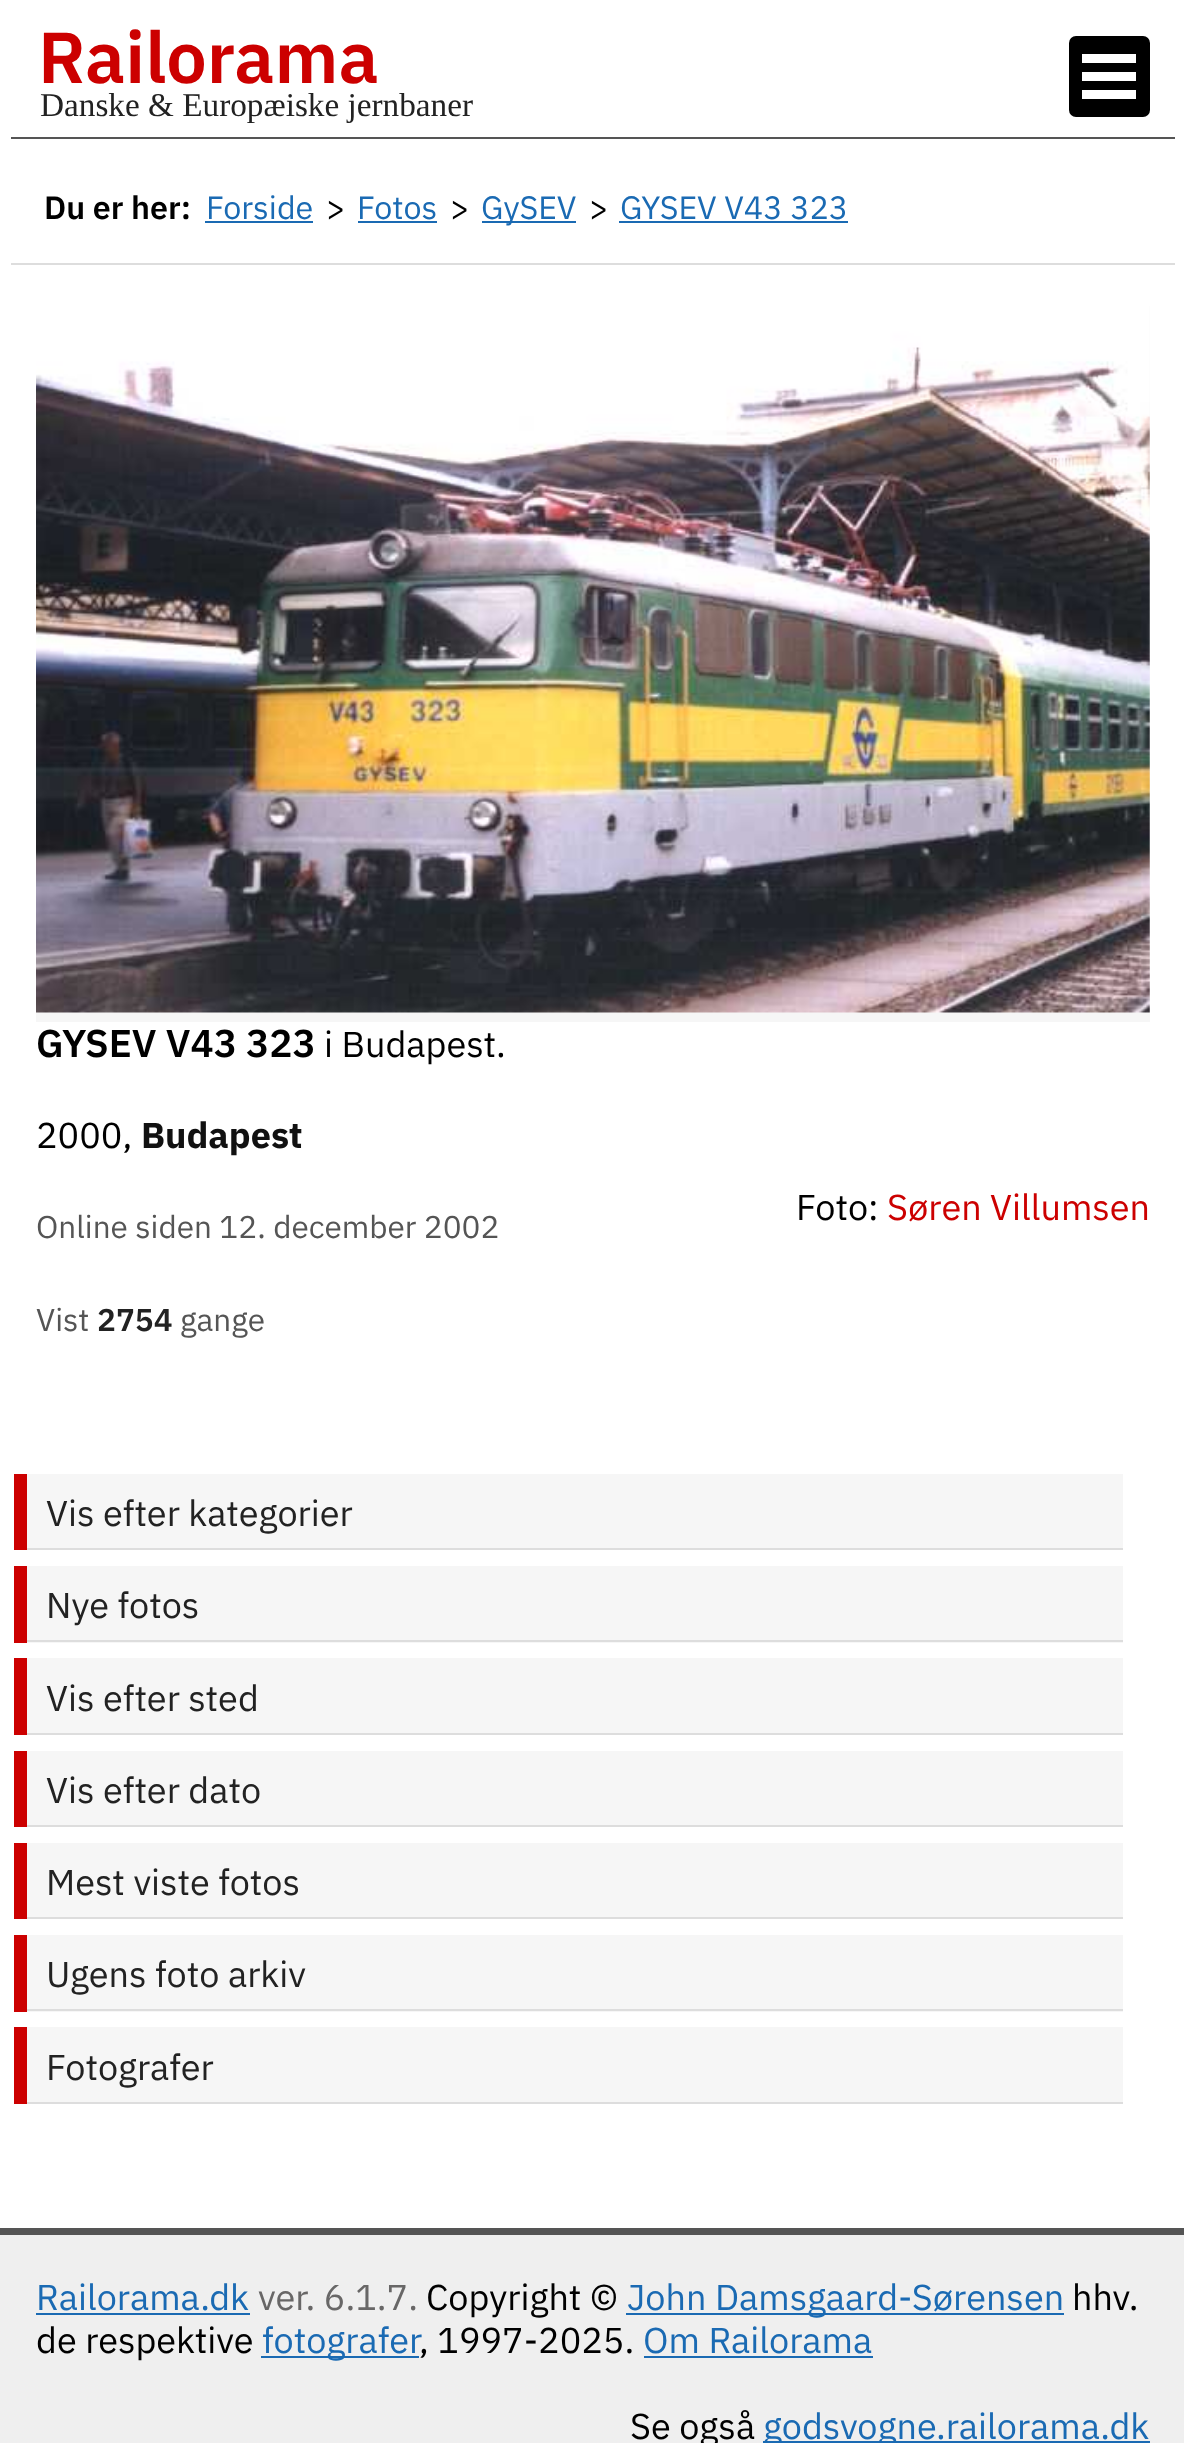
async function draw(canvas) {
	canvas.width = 1184;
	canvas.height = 2443;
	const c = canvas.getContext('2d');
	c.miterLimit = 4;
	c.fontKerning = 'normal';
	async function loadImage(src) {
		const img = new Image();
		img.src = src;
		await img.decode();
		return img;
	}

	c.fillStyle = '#fff';
	c.fillRect(0, 0, 1184, 2443);
	c.fillStyle = '#555';
	c.fillRect(11, 137, 1164, 2);
	c.font = '600 72px IBM Plex Sans';
	c.fillStyle = '#c00';
	c.fillText('Railorama', 38, 83);
	c.font = '33.25px Liberation Serif';
	c.fillStyle = '#222';
	c.fillText('Danske & Europæiske jernbaner', 40, 116);
	c.fillStyle = '#000';
	c.beginPath();
	c.roundRect(1069, 36, 81, 81, 7);
	c.fill();
	for (const [x, y, w, h, color] of [
		[1082, 72, 54, 9, '#fff'],
		[1082, 54, 54, 9, '#fff'],
		[1082, 90, 54, 9, '#fff'],
		[11, 263, 1164, 2, '#ddd'],
	]) {
		c.fillStyle = color;
		c.fillRect(x, y, w, h);
	}
	c.font = '600 32.25px IBM Plex Sans';
	c.fillStyle = '#000';
	c.fillText('Du er her:', 44, 219);
	c.font = '32.25px IBM Plex Sans';
	c.fillStyle = '#1a6ab3';
	c.fillText('Forside', 206, 219);
	c.fillRect(205, 221, 108, 2);
	c.fillStyle = '#000';
	c.fillText('>', 326, 219);
	c.fillStyle = '#1a6ab3';
	c.fillText('Fotos', 357, 219);
	c.fillRect(358, 221, 79, 2);
	c.fillStyle = '#000';
	c.fillText('>', 450, 219);
	c.fillStyle = '#1a6ab3';
	c.fillRect(482, 221, 94, 2);
	c.fillText('GySEV', 481, 219);
	c.fillStyle = '#000';
	c.fillText('>', 589, 219);
	c.fillStyle = '#1a6ab3';
	c.fillText('GYSEV V43 323', 620, 219);
	c.fillRect(619, 221, 229, 2);
	c.fillStyle = '#f6f6f6';
	c.fillRect(36, 306, 1114, 716);
	c.drawImage(await loadImage('img1.png'), 36, 306, 1114, 707);
	c.font = '600 38.75px IBM Plex Sans';
	c.fillStyle = '#000';
	c.fillText('GYSEV V43 323', 36, 1057);
	c.font = '36px IBM Plex Sans';
	c.fillText('i Budapest.', 324, 1057);
	c.fillText('2000,', 36, 1148);
	c.font = 'bold 36px IBM Plex Sans';
	c.fillStyle = '#111';
	c.fillText('Budapest', 141, 1148);
	c.font = '36px IBM Plex Sans';
	c.fillStyle = '#000';
	c.fillText('Foto:', 796, 1220);
	c.fillStyle = '#c00';
	c.fillText('Søren Villumsen', 887, 1220);
	c.font = '31.5px IBM Plex Sans';
	c.fillStyle = '#555';
	c.fillText('Online siden 12. december 2002', 36, 1238);
	c.fillText('Vist', 36, 1331);
	c.font = '600 31.5px IBM Plex Sans';
	c.fillStyle = '#222';
	c.fillText('2754', 97, 1331);
	c.font = '31.5px IBM Plex Sans';
	c.fillStyle = '#555';
	c.fillText('gange', 180, 1331);
	for (const [x, y, w, h, color] of [
		[14, 1474, 13, 76, '#c00'],
		[27, 1474, 1096, 74, '#f6f6f6'],
		[27, 1548, 1096, 2, '#ddd'],
	]) {
		c.fillStyle = color;
		c.fillRect(x, y, w, h);
	}
	c.font = '36px IBM Plex Sans';
	c.fillStyle = '#222';
	c.fillText('Vis efter kategorier', 46, 1526);
	for (const [x, y, w, h, color] of [
		[14, 1566, 13, 77, '#c00'],
		[27, 1566, 1096, 77, '#f6f6f6'],
		[27, 1640, 1096, 2, '#ddd'],
	]) {
		c.fillStyle = color;
		c.fillRect(x, y, w, h);
	}
	c.fillStyle = '#222';
	c.fillText('Nye fotos', 46, 1618);
	for (const [x, y, w, h, color] of [
		[14, 1658, 13, 77, '#c00'],
		[27, 1658, 1096, 75, '#f6f6f6'],
		[27, 1733, 1096, 2, '#ddd'],
	]) {
		c.fillStyle = color;
		c.fillRect(x, y, w, h);
	}
	c.fillStyle = '#222';
	c.fillText('Vis efter sted', 46, 1711);
	for (const [x, y, w, h, color] of [
		[14, 1751, 13, 76, '#c00'],
		[27, 1751, 1096, 74, '#f6f6f6'],
		[27, 1825, 1096, 2, '#ddd'],
	]) {
		c.fillStyle = color;
		c.fillRect(x, y, w, h);
	}
	c.fillStyle = '#222';
	c.fillText('Vis efter dato', 46, 1803);
	for (const [x, y, w, h, color] of [
		[14, 1843, 13, 76, '#c00'],
		[27, 1843, 1096, 74, '#f6f6f6'],
		[27, 1917, 1096, 2, '#ddd'],
	]) {
		c.fillStyle = color;
		c.fillRect(x, y, w, h);
	}
	c.fillStyle = '#222';
	c.fillText('Mest viste fotos', 46, 1895);
	for (const [x, y, w, h, color] of [
		[14, 1935, 13, 77, '#c00'],
		[27, 1935, 1096, 77, '#f6f6f6'],
		[27, 2009, 1096, 2, '#ddd'],
	]) {
		c.fillStyle = color;
		c.fillRect(x, y, w, h);
	}
	c.fillStyle = '#222';
	c.fillText('Ugens foto arkiv', 46, 1987);
	for (const [x, y, w, h, color] of [
		[14, 2027, 13, 77, '#c00'],
		[27, 2027, 1096, 75, '#f6f6f6'],
		[27, 2102, 1096, 2, '#ddd'],
	]) {
		c.fillStyle = color;
		c.fillRect(x, y, w, h);
	}
	c.fillStyle = '#222';
	c.fillText('Fotografer', 46, 2080);
	c.fillStyle = '#efefef';
	c.fillRect(0, 2235, 1184, 208);
	c.fillStyle = '#555';
	c.fillRect(0, 2228, 1184, 7);
	c.fillStyle = '#1a6ab3';
	c.fillText('Railorama.dk', 36, 2310);
	c.fillRect(36, 2313, 214, 2);
	c.fillStyle = '#686767';
	c.fillText('ver. 6.1.7.', 258, 2310);
	c.fillStyle = '#000';
	c.fillText('Copyright ©', 426, 2310);
	c.fillStyle = '#1a6ab3';
	c.fillRect(626, 2313, 438, 2);
	c.fillText('John Damsgaard-Sørensen', 627, 2310);
	c.fillStyle = '#000';
	c.fillText('hhv.', 1072, 2310);
	c.fillText('de respektive', 36, 2353);
	c.fillStyle = '#1a6ab3';
	c.fillRect(261, 2356, 158, 2);
	c.fillText('fotografer', 262, 2353);
	c.fillStyle = '#000';
	c.fillText(', 1997-2025.', 419, 2353);
	c.fillStyle = '#1a6ab3';
	c.fillText('Om Railorama', 643, 2353);
	c.fillRect(644, 2356, 229, 2);
	c.fillStyle = '#000';
	c.fillText('Se også', 630, 2439);
	c.fillStyle = '#1a6ab3';
	c.fillRect(763, 2441, 387, 2);
	c.fillText('godsvogne.railorama.dk', 763, 2439);
}

draw(document.querySelector('canvas'));
